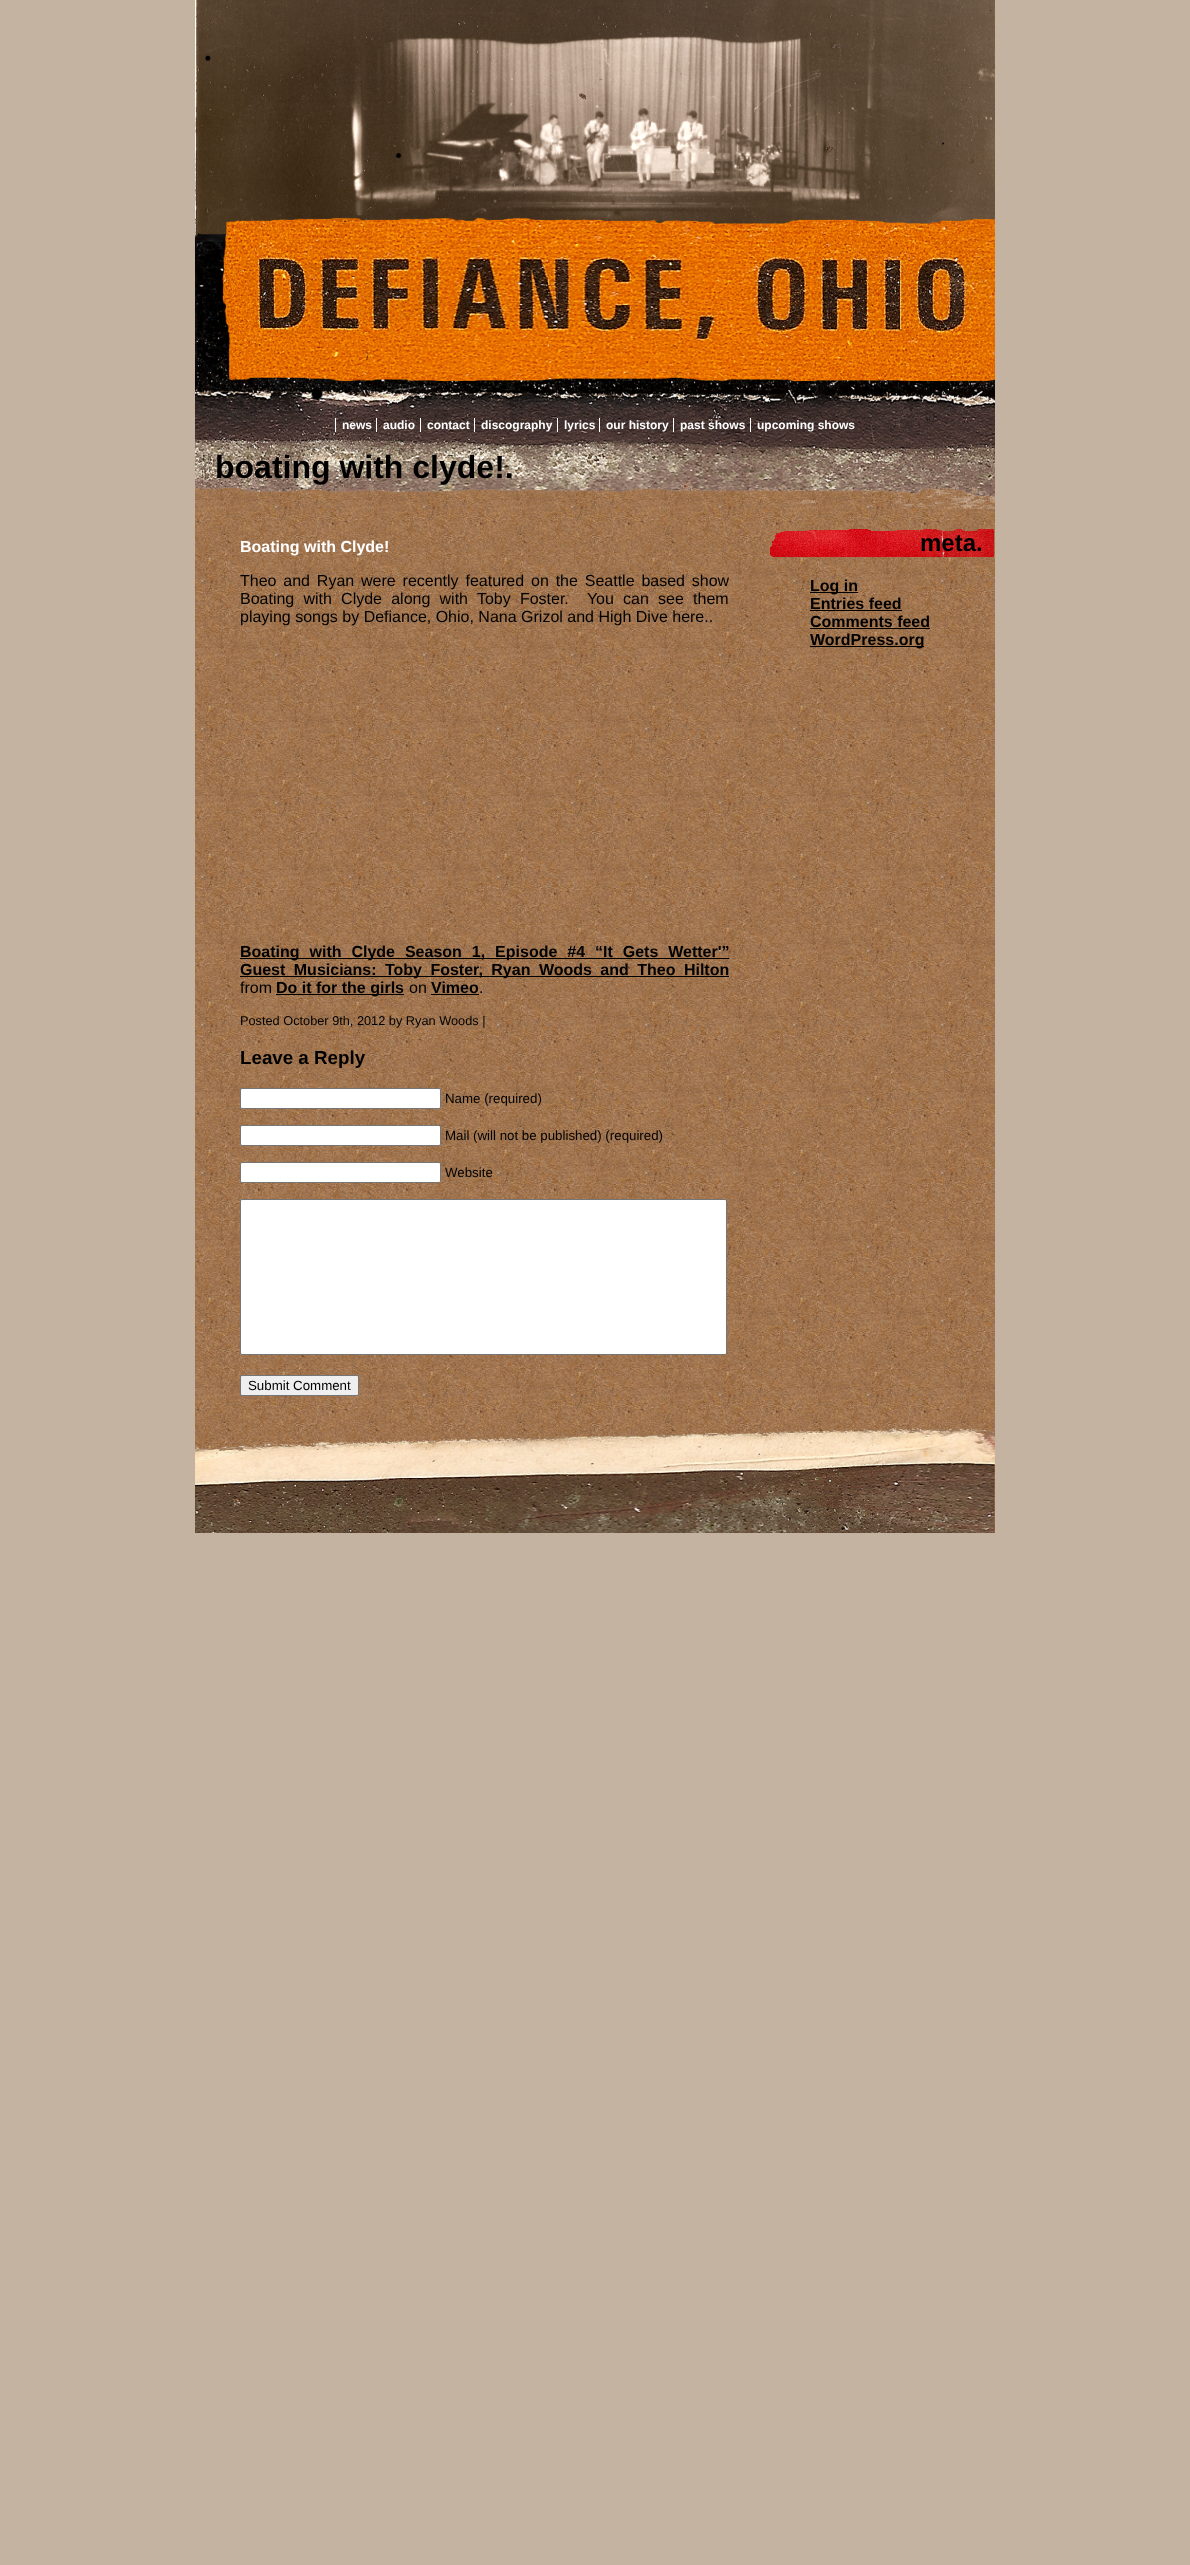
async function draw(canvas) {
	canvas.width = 1190;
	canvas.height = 2565;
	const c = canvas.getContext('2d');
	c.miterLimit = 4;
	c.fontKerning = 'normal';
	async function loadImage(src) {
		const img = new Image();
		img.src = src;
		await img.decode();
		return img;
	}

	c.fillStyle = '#c3b3a0';
	c.fillRect(0, 0, 1190, 2565);
	c.drawImage(await loadImage('img1.png'), 195, 481, 800, 1052);
	c.drawImage(await loadImage('img2.png'), 195, 0, 800, 509);
	c.font = 'bold 12px Liberation Sans';
	c.fillStyle = '#fff';
	c.fillText('news', 342, 429);
	c.fillRect(335, 418, 1, 14);
	c.fillRect(376, 418, 1, 14);
	c.fillText('audio', 383, 429);
	c.fillRect(420, 418, 1, 14);
	c.fillText('contact', 427, 429);
	c.fillRect(474, 418, 1, 14);
	c.fillText('discography', 481, 429);
	c.fillRect(557, 418, 1, 14);
	c.fillText('lyrics', 564, 429);
	c.fillRect(599, 418, 1, 14);
	c.fillText('our history', 606, 429);
	c.fillRect(673, 418, 1, 14);
	c.fillText('past shows', 680, 429);
	c.fillRect(750, 418, 1, 14);
	c.fillText('upcoming shows', 757, 429);
	c.font = 'bold 32px Liberation Sans';
	c.fillStyle = '#000';
	c.fillText('boating with clyde!.', 215, 478);
	c.font = 'bold 16px Liberation Sans';
	c.fillStyle = '#fff';
	c.fillText('Boating with Clyde!', 240, 552);
	c.wordSpacing = '2.4px';
	c.font = '16px Liberation Sans';
	c.fillStyle = '#000';
	c.fillText('Theo and Ryan were recently featured on the Seattle based show', 240, 586);
	c.wordSpacing = '4.75px';
	c.fillText('Boating with Clyde along with Toby Foster.  You can see them', 240, 604);
	c.wordSpacing = '0px';
	c.fillText('playing songs by Defiance, Ohio, Nana Grizol and High Dive here..', 240, 622);
	c.fillRect(240, 958, 489, 1);
	c.wordSpacing = '5.5px';
	c.font = 'bold 16px Liberation Sans';
	c.fillText('Boating with Clyde Season 1, Episode #4 “It Gets Wetter\'”', 240, 957);
	c.fillRect(240, 976, 489, 1);
	c.wordSpacing = '4px';
	c.fillText('Guest Musicians: Toby Foster, Ryan Woods and Theo Hilton', 240, 975);
	c.wordSpacing = '0px';
	c.font = '16px Liberation Sans';
	c.fillText('from', 240, 993);
	c.fillRect(276, 994, 128, 1);
	c.font = 'bold 16px Liberation Sans';
	c.fillText('Do it for the girls', 276, 993);
	c.font = '16px Liberation Sans';
	c.fillText('on', 409, 993);
	c.font = 'bold 16px Liberation Sans';
	c.fillText('Vimeo', 431, 993);
	c.fillRect(431, 994, 48, 1);
	c.font = '16px Liberation Sans';
	c.fillText('.', 479, 993);
	c.font = '12.75px Liberation Sans';
	c.fillText('Posted October 9th, 2012 by Ryan Woods |', 240, 1025);
	c.font = 'bold 18.75px Liberation Sans';
	c.fillText('Leave a Reply', 240, 1064);
	c.fillStyle = '#fff';
	c.beginPath();
	c.roundRect(240.5, 1088.5, 200, 20, 1.5);
	c.fill();
	c.strokeStyle = '#767676';
	c.stroke();
	c.font = '13.3px Liberation Sans';
	c.fillStyle = '#000';
	c.fillText('Name (required)', 445, 1103);
	c.fillStyle = '#fff';
	c.beginPath();
	c.roundRect(240.5, 1125.5, 200, 20, 1.5);
	c.fill();
	c.stroke();
	c.fillStyle = '#000';
	c.fillText('Mail (will not be published) (required)', 445, 1140);
	c.fillStyle = '#fff';
	c.beginPath();
	c.roundRect(240.5, 1162.5, 200, 20, 1.5);
	c.fill();
	c.stroke();
	c.fillStyle = '#000';
	c.fillText('Website', 445, 1177);
	c.fillStyle = '#fff';
	c.beginPath();
	c.roundRect(240.5, 1199.5, 486, 155, 1.5);
	c.fill();
	c.stroke();
	c.fillStyle = '#efefef';
	c.beginPath();
	c.roundRect(240.5, 1375.5, 118, 20, 1.5);
	c.fill();
	c.stroke();
	c.fillStyle = '#000';
	c.fillText('Submit Comment', 248, 1390);
	c.drawImage(await loadImage('img3.png'), 770, 529, 224, 28);
	c.font = 'bold 24px Liberation Sans';
	c.fillText('meta.', 920, 551);
	c.fillRect(810, 592, 48, 1);
	c.font = 'bold 16px Liberation Sans';
	c.fillText('Log in', 810, 591);
	c.fillText('Entries feed', 810, 609);
	c.fillRect(810, 610, 92, 1);
	c.fillText('Comments feed', 810, 627);
	c.fillRect(810, 628, 120, 1);
	c.fillRect(810, 646, 114, 1);
	c.fillText('WordPress.org', 810, 645);
	c.drawImage(await loadImage('img4.png'), 195, 1428, 800, 105);
}

draw(document.querySelector('canvas'));
